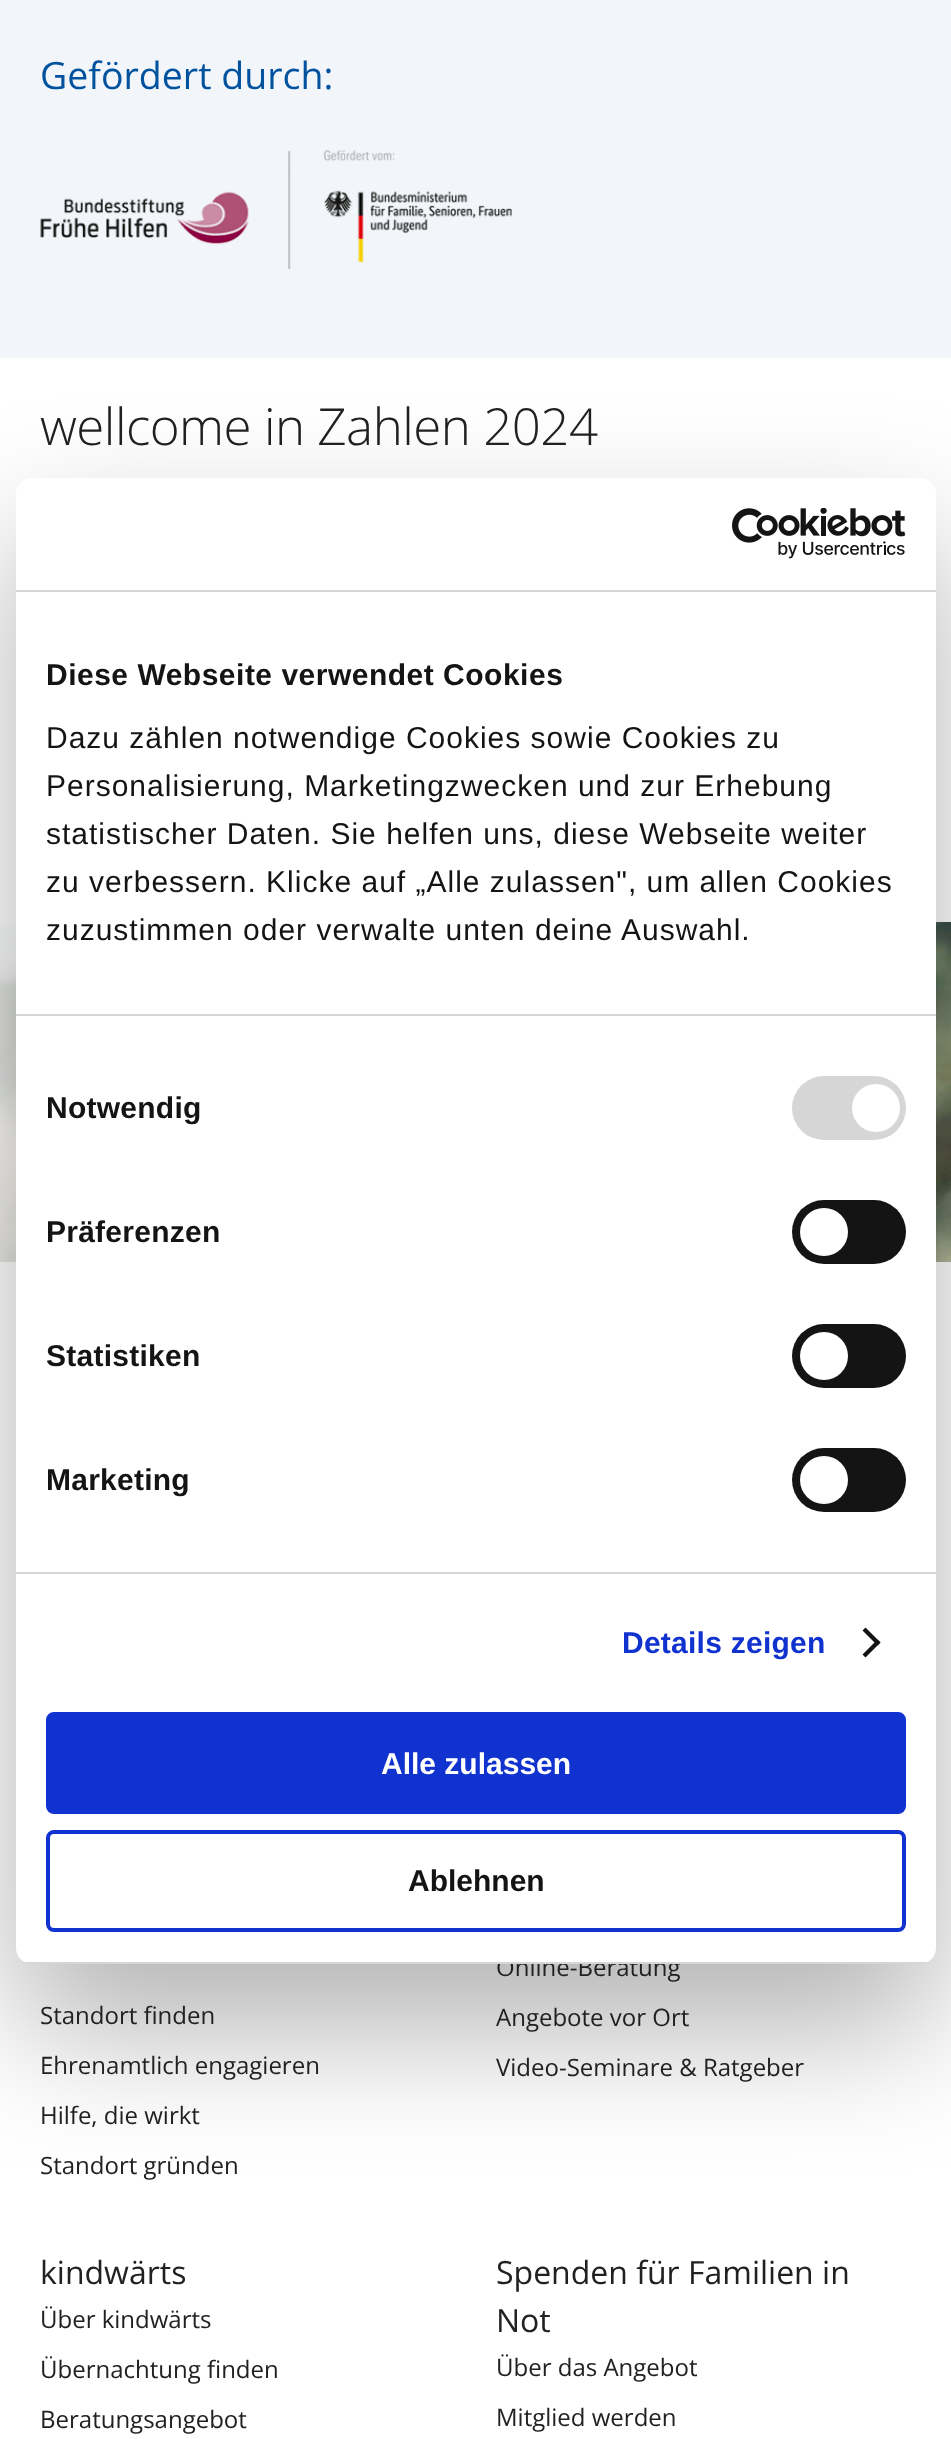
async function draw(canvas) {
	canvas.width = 951;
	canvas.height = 2439;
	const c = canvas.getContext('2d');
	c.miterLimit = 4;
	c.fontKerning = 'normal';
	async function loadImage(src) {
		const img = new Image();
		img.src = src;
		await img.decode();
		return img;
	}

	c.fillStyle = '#fff';
	c.fillRect(0, 0, 951, 2439);
	c.fillStyle = '#f2f6fa';
	c.fillRect(0, 0, 951, 358);
	c.font = '37.5px Open Sans';
	c.fillStyle = '#01529e';
	c.fillText('Gefördert durch:', 40, 89);
	c.drawImage(await loadImage('img1.png'), 40, 150, 472, 119);
	c.letterSpacing = '-0.5px';
	c.font = '300 51px Open Sans';
	c.fillStyle = '#212121';
	c.fillText('wellcome in Zahlen 2024', 40, 445);
	c.drawImage(await loadImage('img2.png'), 0, 922, 951, 340);
	c.fillStyle = '#0000004d';
	c.filter = 'blur(68px)';
	c.beginPath();
	c.roundRect(16, 542, 920, 1486, 16);
	c.fill();
	c.filter = 'none';
	c.letterSpacing = '0px';
	c.font = '24px Open Sans';
	c.fillStyle = '#212121';
	c.fillText('Online-Beratung', 496, 1976);
	c.fillStyle = '#fff';
	c.beginPath();
	c.roundRect(16, 478, 920, 1486, 16);
	c.fill();
	c.fillStyle = '#d6d6d6';
	c.fillRect(16, 590, 920, 2);
	c.drawImage(await loadImage('img3.png'), 732, 508, 174, 51);
	c.fillRect(16, 1014, 920, 2);
	c.letterSpacing = '0.5px';
	c.font = 'bold 30px Liberation Sans';
	c.fillStyle = '#141414';
	c.fillText('Diese Webseite verwendet Cookies', 46, 685);
	c.letterSpacing = '1px';
	c.font = '30px Liberation Sans';
	for (const [text, x, y] of [
		['Dazu zählen notwendige Cookies sowie Cookies zu', 46, 748],
		['Personalisierung, Marketingzwecken und zur Erhebung', 46, 796],
		['statistischer Daten. Sie helfen uns, diese Webseite weiter', 46, 844],
		['zu verbessern. Klicke auf „Alle zulassen", um allen Cookies', 46, 892],
		['zuzustimmen oder verwalte unten deine Auswahl.', 46, 940],
	]) {
		c.fillText(text, x, y);
	}
	c.fillStyle = '#d6d6d6';
	c.fillRect(16, 1572, 920, 2);
	c.letterSpacing = '0.25px';
	c.font = 'bold 30px Liberation Sans';
	c.fillStyle = '#141414';
	c.fillText('Notwendig', 46, 1118);
	c.fillStyle = '#d6d6d6';
	c.beginPath();
	c.roundRect(792, 1076, 114, 64, 32);
	c.fill();
	c.fillStyle = '#fff';
	c.beginPath();
	c.arc(876, 1108, 24, 0, 2 * Math.PI);
	c.fill();
	c.fillStyle = '#141414';
	c.fillText('Präferenzen', 46, 1242);
	c.beginPath();
	c.roundRect(792, 1200, 114, 64, 32);
	c.fill();
	c.fillStyle = '#fff';
	c.beginPath();
	c.arc(824, 1232, 24, 0, 2 * Math.PI);
	c.fill();
	c.fillStyle = '#141414';
	c.fillText('Statistiken', 46, 1366);
	c.beginPath();
	c.roundRect(792, 1324, 114, 64, 32);
	c.fill();
	c.fillStyle = '#fff';
	c.beginPath();
	c.arc(824, 1356, 24, 0, 2 * Math.PI);
	c.fill();
	c.fillStyle = '#141414';
	c.fillText('Marketing', 46, 1490);
	c.beginPath();
	c.roundRect(792, 1448, 114, 64, 32);
	c.fill();
	c.fillStyle = '#fff';
	c.beginPath();
	c.arc(824, 1480, 24, 0, 2 * Math.PI);
	c.fill();
	c.fillStyle = '#1032cf';
	c.fillText('Details zeigen', 622, 1653);
	c.fillStyle = '#141414';
	c.beginPath();
	c.moveTo(865.5, 1627.5);
	c.lineTo(880.5, 1642.5);
	c.lineTo(877.5, 1645.5);
	c.lineTo(862.5, 1630.5);
	c.closePath();
	c.fill();
	c.beginPath();
	c.moveTo(877.5, 1639.5);
	c.lineTo(880.5, 1642.5);
	c.lineTo(865.5, 1657.5);
	c.lineTo(862.5, 1654.5);
	c.closePath();
	c.fill();
	c.save();
	c.beginPath();
	c.roundRect(16, 478, 920, 1486, 16);
	c.clip();
	c.fillStyle = '#d6d6d6';
	c.fillRect(16, 1962, 920, 2);
	c.restore();
	c.fillStyle = '#1032cf';
	c.beginPath();
	c.roundRect(48, 1714, 856, 98, 6);
	c.fill();
	c.strokeStyle = '#1032cf';
	c.lineWidth = 4;
	c.stroke();
	c.letterSpacing = '0px';
	c.fillStyle = '#fff';
	c.fillText('Alle zulassen', 381, 1774);
	c.beginPath();
	c.roundRect(48, 1832, 856, 98, 6);
	c.stroke();
	c.fillStyle = '#141414';
	c.fillText('Ablehnen', 408, 1891);
	c.font = '24px Open Sans';
	c.fillStyle = '#212121';
	for (const [text, x, y] of [
		['Standort finden', 40, 2024],
		['Ehrenamtlich engagieren', 40, 2074],
		['Hilfe, die wirkt', 40, 2124],
		['Standort gründen', 40, 2174],
		['Angebote vor Ort', 496, 2026],
		['Video-Seminare & Ratgeber', 496, 2076],
	]) {
		c.fillText(text, x, y);
	}
	c.font = '32px Open Sans';
	c.fillText('kindwärts', 40, 2284);
	c.font = '24px Open Sans';
	for (const [text, x, y] of [
		['Über kindwärts', 40, 2328],
		['Übernachtung finden', 40, 2378],
		['Beratungsangebot', 40, 2428],
	]) {
		c.fillText(text, x, y);
	}
	c.font = '32px Open Sans';
	c.fillText('Spenden für Familien in', 496, 2284);
	c.fillText('Not', 496, 2332);
	c.font = '24px Open Sans';
	c.fillText('Über das Angebot', 496, 2376);
	c.fillText('Mitglied werden', 496, 2426);
}

draw(document.querySelector('canvas'));
